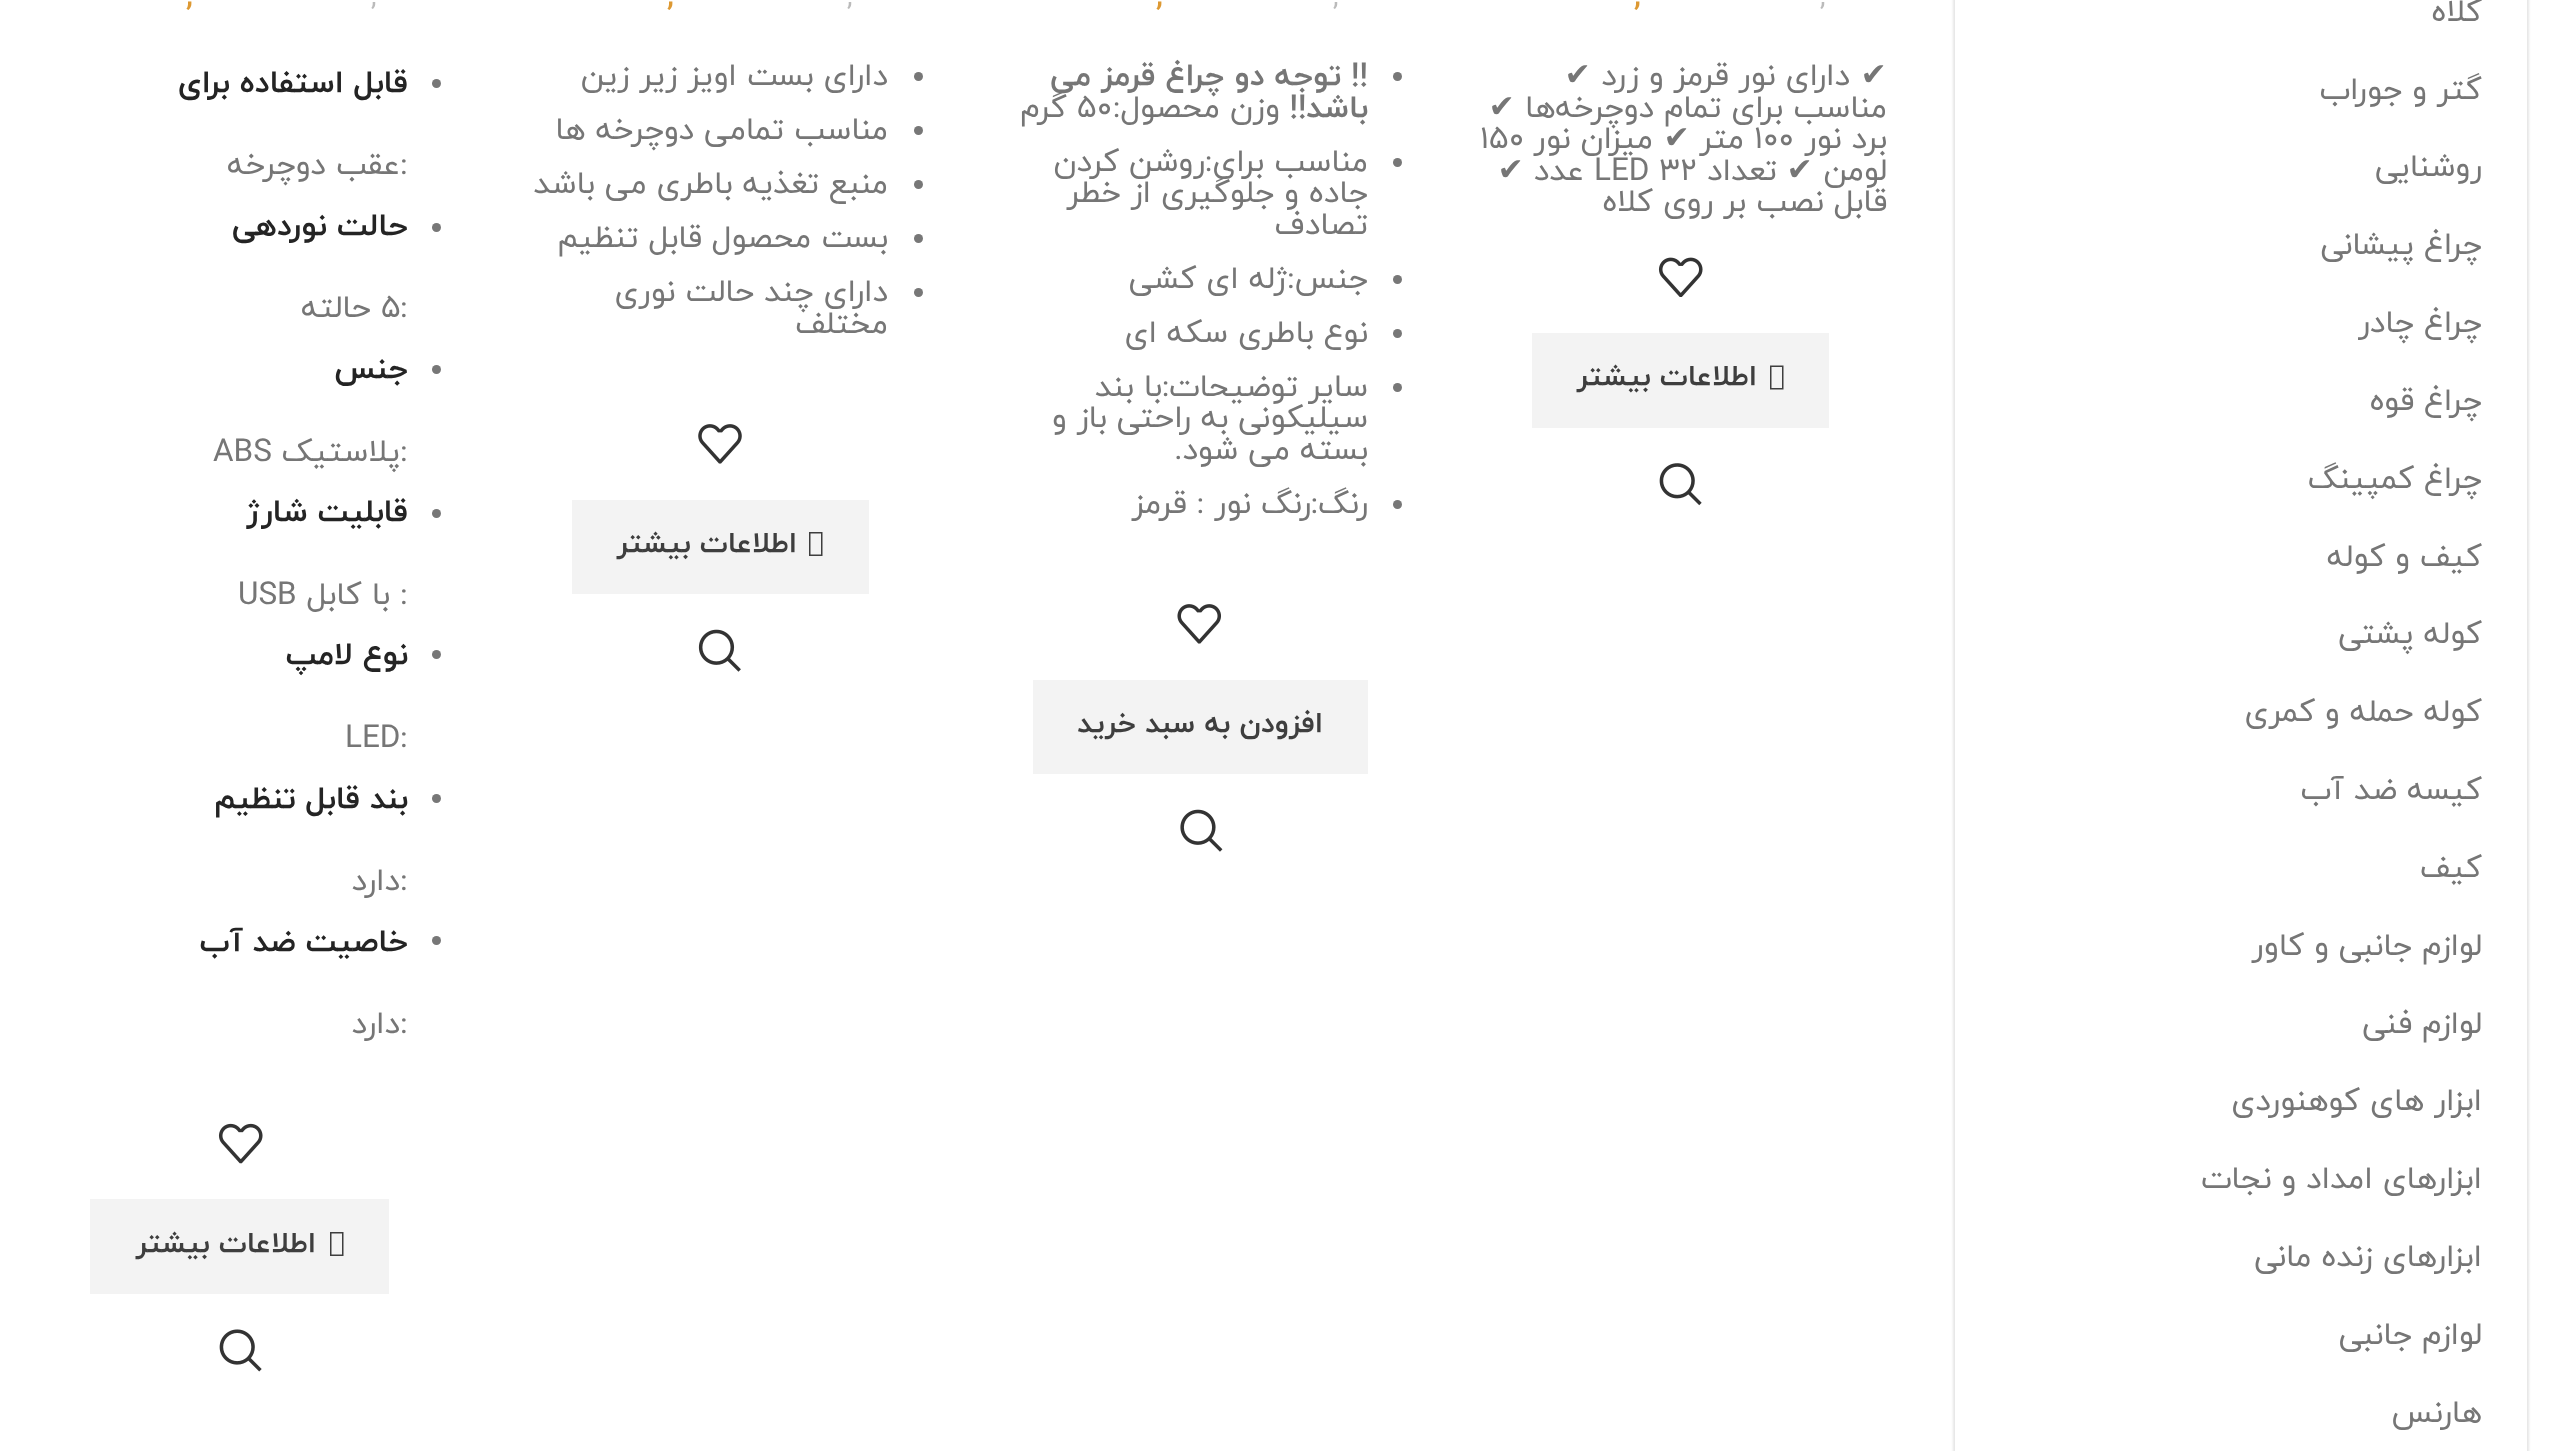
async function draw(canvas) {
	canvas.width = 2560;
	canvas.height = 1451;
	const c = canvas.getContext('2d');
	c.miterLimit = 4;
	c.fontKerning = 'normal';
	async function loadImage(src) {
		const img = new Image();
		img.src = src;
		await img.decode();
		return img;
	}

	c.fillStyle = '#fff';
	c.fillRect(0, 0, 2560, 1451);
	c.save();
	c.beginPath();
	c.moveTo(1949, 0);
	c.lineTo(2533, 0);
	c.lineTo(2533, 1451);
	c.lineTo(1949, 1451);
	c.closePath();
	c.moveTo(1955, -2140);
	c.lineTo(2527, -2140);
	c.lineTo(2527, 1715);
	c.lineTo(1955, 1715);
	c.closePath();
	c.clip('evenodd');
	c.fillStyle = '#e6e6e6';
	c.filter = 'blur(1px)';
	c.beginPath();
	c.rect(1953, -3, 576, 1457);
	c.fill();
	c.filter = 'none';
	c.restore();
	c.direction = 'rtl';
	c.font = '31.5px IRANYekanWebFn';
	c.fillStyle = '#767676';
	for (const [text, x, y] of [
		['کلاه', 2482, 21],
		['گتر و جوراب', 2482, 99],
		['روشنایی', 2482, 176],
		['چراغ پیشانی', 2482, 254],
		['چراغ چادر', 2482, 332],
		['چراغ قوه', 2482, 410],
		['چراغ کمپینگ', 2482, 488],
		['کیف و کوله', 2482, 566],
		['کوله پشتی', 2482, 643],
		['کوله حمله و کمری', 2482, 721],
		['کیسه ضد آب', 2482, 799],
		['کیف', 2482, 877],
		['لوازم جانبی و کاور', 2482, 955],
		['لوازم فنی', 2482, 1033],
		['ابزار های کوهنوردی', 2482, 1110],
		['ابزارهای امداد و نجات', 2482, 1188],
		['ابزارهای زنده مانی', 2482, 1266],
		['لوازم جانبی', 2482, 1344],
		['هارنس', 2482, 1422],
	]) {
		c.fillText(text, x, y);
	}
	c.direction = 'ltr';
	c.font = '28px IRANYekanWebFn';
	c.fillStyle = '#bbb';
	c.fillText(',', 1820, 5);
	c.font = 'bold 31.5px IRANYekanWebFn';
	c.fillStyle = '#d93';
	c.fillText(',', 1634, 5);
	c.direction = 'rtl';
	c.font = '31.5px DejaVu Sans';
	c.fillStyle = '#767676';
	c.fillText('✔', 1887, 85);
	c.font = '31.5px IRANYekanWebFn';
	c.fillText('دارای نور قرمز و زرد', 1850, 85);
	c.font = '31.5px DejaVu Sans';
	c.fillText('✔', 1591, 85);
	c.font = '31.5px IRANYekanWebFn';
	c.fillText('مناسب برای تمام دوچرخه‌ها', 1887, 117);
	c.font = '31.5px DejaVu Sans';
	c.fillText('✔', 1515, 117);
	c.font = '31.5px IRANYekanWebFn';
	c.fillText('برد نور', 1887, 148);
	c.direction = 'ltr';
	c.fillText('100', 1754, 148);
	c.direction = 'rtl';
	c.fillText('متر', 1744, 148);
	c.font = '31.5px DejaVu Sans';
	c.fillText('✔', 1690, 148);
	c.font = '31.5px IRANYekanWebFn';
	c.fillText('میزان نور', 1653, 148);
	c.direction = 'ltr';
	c.fillText('150', 1480, 148);
	c.direction = 'rtl';
	c.fillText('لومن', 1887, 180);
	c.font = '31.5px DejaVu Sans';
	c.fillText('✔', 1813, 180);
	c.font = '31.5px IRANYekanWebFn';
	c.fillText('تعداد', 1777, 180);
	c.direction = 'ltr';
	c.fillText('LED 32', 1594, 180);
	c.direction = 'rtl';
	c.fillText('عدد', 1584, 180);
	c.font = '31.5px DejaVu Sans';
	c.fillText('✔', 1524, 180);
	c.font = '31.5px IRANYekanWebFn';
	c.fillText('قابل نصب بر روی کلاه', 1887, 211);
	c.drawImage(await loadImage('img1.png'), 1658, 257, 45, 40);
	c.fillStyle = '#f3f3f3';
	c.fillRect(1532, 333, 297, 95);
	c.fillStyle = '#3e3e3e';
	c.beginPath();
	c.moveTo(1770, 389.5);
	c.lineTo(1770, 365.5);
	c.lineTo(1783.5, 365.5);
	c.lineTo(1783.5, 389.5);
	c.closePath();
	c.moveTo(1771.5, 388);
	c.lineTo(1782, 388);
	c.lineTo(1782, 367);
	c.lineTo(1771.5, 367);
	c.closePath();
	c.fill();
	c.font = 'bold 29.25px IRANYekanWebFn';
	c.fillText('اطلاعات بیشتر', 1757, 385);
	c.drawImage(await loadImage('img2.png'), 1659, 463, 43, 43);
	c.direction = 'ltr';
	c.font = '28px IRANYekanWebFn';
	c.fillStyle = '#bbb';
	c.fillText(',', 1333, 5);
	c.font = 'bold 31.5px IRANYekanWebFn';
	c.fillStyle = '#d93';
	c.fillText(',', 1156, 5);
	c.fillStyle = '#777';
	c.beginPath();
	c.arc(1397.5, 76.5, 4.5, 0, 2 * Math.PI);
	c.fill();
	c.direction = 'rtl';
	c.fillStyle = '#767676';
	c.fillText('!! توجه دو چراغ قرمز می', 1368, 85);
	c.fillText('باشد!!', 1368, 117);
	c.font = '31.5px IRANYekanWebFn';
	c.fillText('وزن محصول:', 1280, 117);
	c.direction = 'ltr';
	c.fillText('50', 1077, 117);
	c.direction = 'rtl';
	c.fillText('گرم', 1067, 117);
	c.fillStyle = '#777';
	c.beginPath();
	c.arc(1397.5, 162.5, 4.5, 0, 2 * Math.PI);
	c.fill();
	c.fillStyle = '#767676';
	for (const [text, x, y] of [
		['مناسب برای:', 1368, 171],
		['روشن کردن', 1205, 171],
		['جاده و جلوگیری از خطر', 1368, 202],
		['تصادف', 1368, 234],
	]) {
		c.fillText(text, x, y);
	}
	c.fillStyle = '#777';
	c.beginPath();
	c.arc(1397.5, 279.5, 4.5, 0, 2 * Math.PI);
	c.fill();
	c.fillStyle = '#767676';
	c.fillText('جنس:', 1368, 288);
	c.fillText('ژله ای کشی', 1287, 288);
	c.fillStyle = '#777';
	c.beginPath();
	c.arc(1397.5, 333.5, 4.5, 0, 2 * Math.PI);
	c.fill();
	c.fillStyle = '#767676';
	c.fillText('نوع باطری سکه ای', 1368, 342);
	c.fillStyle = '#777';
	c.beginPath();
	c.arc(1397.5, 387.5, 4.5, 0, 2 * Math.PI);
	c.fill();
	c.fillStyle = '#767676';
	for (const [text, x, y] of [
		['سایر توضیحات:', 1368, 396],
		['با بند', 1162, 396],
		['سیلیکونی به راحتی باز و', 1368, 427],
		['بسته می شود.', 1368, 459],
	]) {
		c.fillText(text, x, y);
	}
	c.fillStyle = '#777';
	c.beginPath();
	c.arc(1397.5, 504.5, 4.5, 0, 2 * Math.PI);
	c.fill();
	c.fillStyle = '#767676';
	c.fillText('رنگ:', 1368, 513);
	c.fillText('رنگ نور : قرمز', 1311, 513);
	c.drawImage(await loadImage('img3.png'), 1177, 604, 44, 40);
	c.fillStyle = '#f3f3f3';
	c.fillRect(1033, 680, 335, 94);
	c.font = 'bold 29.25px IRANYekanWebFn';
	c.fillStyle = '#3e3e3e';
	c.fillText('افزودن به سبد خرید', 1323, 732);
	c.drawImage(await loadImage('img4.png'), 1180, 809, 43, 43);
	c.direction = 'ltr';
	c.font = '28px IRANYekanWebFn';
	c.fillStyle = '#bbb';
	c.fillText(',', 847, 5);
	c.font = 'bold 31.5px IRANYekanWebFn';
	c.fillStyle = '#d93';
	c.fillText(',', 667, 5);
	c.fillStyle = '#777';
	c.beginPath();
	c.arc(918.5, 76.5, 4.5, 0, 2 * Math.PI);
	c.fill();
	c.direction = 'rtl';
	c.font = '31.5px IRANYekanWebFn';
	c.fillStyle = '#767676';
	c.fillText('دارای بست اویز زیر زین', 888, 85);
	c.fillStyle = '#777';
	c.beginPath();
	c.arc(918.5, 130.5, 4.5, 0, 2 * Math.PI);
	c.fill();
	c.fillStyle = '#767676';
	c.fillText('مناسب تمامی دوچرخه ها', 888, 139);
	c.fillStyle = '#777';
	c.beginPath();
	c.arc(918.5, 184.5, 4.5, 0, 2 * Math.PI);
	c.fill();
	c.fillStyle = '#767676';
	c.fillText('منبع تغذیه باطری می باشد', 888, 193);
	c.fillStyle = '#777';
	c.beginPath();
	c.arc(918.5, 238.5, 4.5, 0, 2 * Math.PI);
	c.fill();
	c.fillStyle = '#767676';
	c.fillText('بست محصول قابل تنظیم', 888, 247);
	c.fillStyle = '#777';
	c.beginPath();
	c.arc(918.5, 292.5, 4.5, 0, 2 * Math.PI);
	c.fill();
	c.fillStyle = '#767676';
	c.fillText('دارای چند حالت نوری', 888, 301);
	c.fillText('مختلف', 888, 333);
	c.drawImage(await loadImage('img5.png'), 698, 424, 44, 40);
	c.fillStyle = '#f3f3f3';
	c.fillRect(572, 500, 297, 94);
	c.fillStyle = '#3e3e3e';
	c.beginPath();
	c.moveTo(809, 556);
	c.lineTo(809, 532);
	c.lineTo(822.5, 532);
	c.lineTo(822.5, 556);
	c.closePath();
	c.moveTo(810.5, 554.5);
	c.lineTo(821, 554.5);
	c.lineTo(821, 533.5);
	c.lineTo(810.5, 533.5);
	c.closePath();
	c.fill();
	c.font = 'bold 29.25px IRANYekanWebFn';
	c.fillText('اطلاعات بیشتر', 797, 552);
	c.drawImage(await loadImage('img6.png'), 698, 629, 43, 43);
	c.direction = 'ltr';
	c.font = '28px IRANYekanWebFn';
	c.fillStyle = '#bbb';
	c.fillText(',', 371, 5);
	c.font = 'bold 31.5px IRANYekanWebFn';
	c.fillStyle = '#d93';
	c.fillText(',', 186, 5);
	c.fillStyle = '#777';
	c.beginPath();
	c.arc(436.5, 83.5, 4.5, 0, 2 * Math.PI);
	c.fill();
	c.direction = 'rtl';
	c.fillStyle = '#242424';
	c.fillText('قابل استفاده برای', 408, 92);
	c.direction = 'ltr';
	c.font = '31.5px IRANYekanWebFn';
	c.fillStyle = '#767676';
	c.fillText(':', 400, 174);
	c.direction = 'rtl';
	c.fillText('عقب دوچرخه', 400, 174);
	c.fillStyle = '#777';
	c.beginPath();
	c.arc(436.5, 227.5, 4.5, 0, 2 * Math.PI);
	c.fill();
	c.font = 'bold 31.5px IRANYekanWebFn';
	c.fillStyle = '#242424';
	c.fillText('حالت نوردهی', 408, 235);
	c.direction = 'ltr';
	c.font = '31.5px IRANYekanWebFn';
	c.fillStyle = '#767676';
	c.fillText(':', 400, 317);
	c.fillText('5', 381, 317);
	c.direction = 'rtl';
	c.fillText('حالته', 371, 317);
	c.fillStyle = '#777';
	c.beginPath();
	c.arc(436.5, 369.5, 4.5, 0, 2 * Math.PI);
	c.fill();
	c.font = 'bold 31.5px IRANYekanWebFn';
	c.fillStyle = '#242424';
	c.fillText('جنس', 408, 378);
	c.direction = 'ltr';
	c.font = '31.5px IRANYekanWebFn';
	c.fillStyle = '#767676';
	c.fillText(':', 400, 461);
	c.direction = 'rtl';
	c.fillText('پلاستیک', 400, 461);
	c.direction = 'ltr';
	c.fillText('ABS', 213, 461);
	c.fillStyle = '#777';
	c.beginPath();
	c.arc(436.5, 513.5, 4.5, 0, 2 * Math.PI);
	c.fill();
	c.direction = 'rtl';
	c.font = 'bold 31.5px IRANYekanWebFn';
	c.fillStyle = '#242424';
	c.fillText('قابلیت شارژ', 408, 521);
	c.direction = 'ltr';
	c.font = '31.5px IRANYekanWebFn';
	c.fillStyle = '#767676';
	c.fillText(':', 400, 604);
	c.direction = 'rtl';
	c.fillText('با کابل', 390, 604);
	c.direction = 'ltr';
	c.fillText('USB', 238, 604);
	c.fillStyle = '#777';
	c.beginPath();
	c.arc(436.5, 654.5, 4.5, 0, 2 * Math.PI);
	c.fill();
	c.direction = 'rtl';
	c.font = 'bold 31.5px IRANYekanWebFn';
	c.fillStyle = '#242424';
	c.fillText('نوع لامپ', 408, 664);
	c.direction = 'ltr';
	c.font = '31.5px IRANYekanWebFn';
	c.fillStyle = '#767676';
	c.fillText(':', 400, 747);
	c.fillText('LED', 345, 747);
	c.fillStyle = '#777';
	c.beginPath();
	c.arc(436.5, 798.5, 4.5, 0, 2 * Math.PI);
	c.fill();
	c.direction = 'rtl';
	c.font = 'bold 31.5px IRANYekanWebFn';
	c.fillStyle = '#242424';
	c.fillText('بند قابل تنظیم', 408, 808);
	c.direction = 'ltr';
	c.font = '31.5px IRANYekanWebFn';
	c.fillStyle = '#767676';
	c.fillText(':', 400, 890);
	c.direction = 'rtl';
	c.fillText('دارد', 400, 890);
	c.fillStyle = '#777';
	c.beginPath();
	c.arc(436.5, 940.5, 4.5, 0, 2 * Math.PI);
	c.fill();
	c.font = 'bold 31.5px IRANYekanWebFn';
	c.fillStyle = '#242424';
	c.fillText('خاصیت ضد آب', 408, 951);
	c.direction = 'ltr';
	c.font = '31.5px IRANYekanWebFn';
	c.fillStyle = '#767676';
	c.fillText(':', 400, 1033);
	c.direction = 'rtl';
	c.fillText('دارد', 400, 1033);
	c.drawImage(await loadImage('img7.png'), 218, 1123, 45, 41);
	c.fillStyle = '#f3f3f3';
	c.fillRect(90, 1199, 299, 95);
	c.fillStyle = '#3e3e3e';
	c.beginPath();
	c.moveTo(330, 1256);
	c.lineTo(330, 1232);
	c.lineTo(343.5, 1232);
	c.lineTo(343.5, 1256);
	c.closePath();
	c.moveTo(331.5, 1254.5);
	c.lineTo(342, 1254.5);
	c.lineTo(342, 1233.5);
	c.lineTo(331.5, 1233.5);
	c.closePath();
	c.fill();
	c.font = 'bold 29.25px IRANYekanWebFn';
	c.fillText('اطلاعات بیشتر', 316, 1252);
	c.drawImage(await loadImage('img8.png'), 219, 1329, 43, 43);
}

draw(document.querySelector('canvas'));
